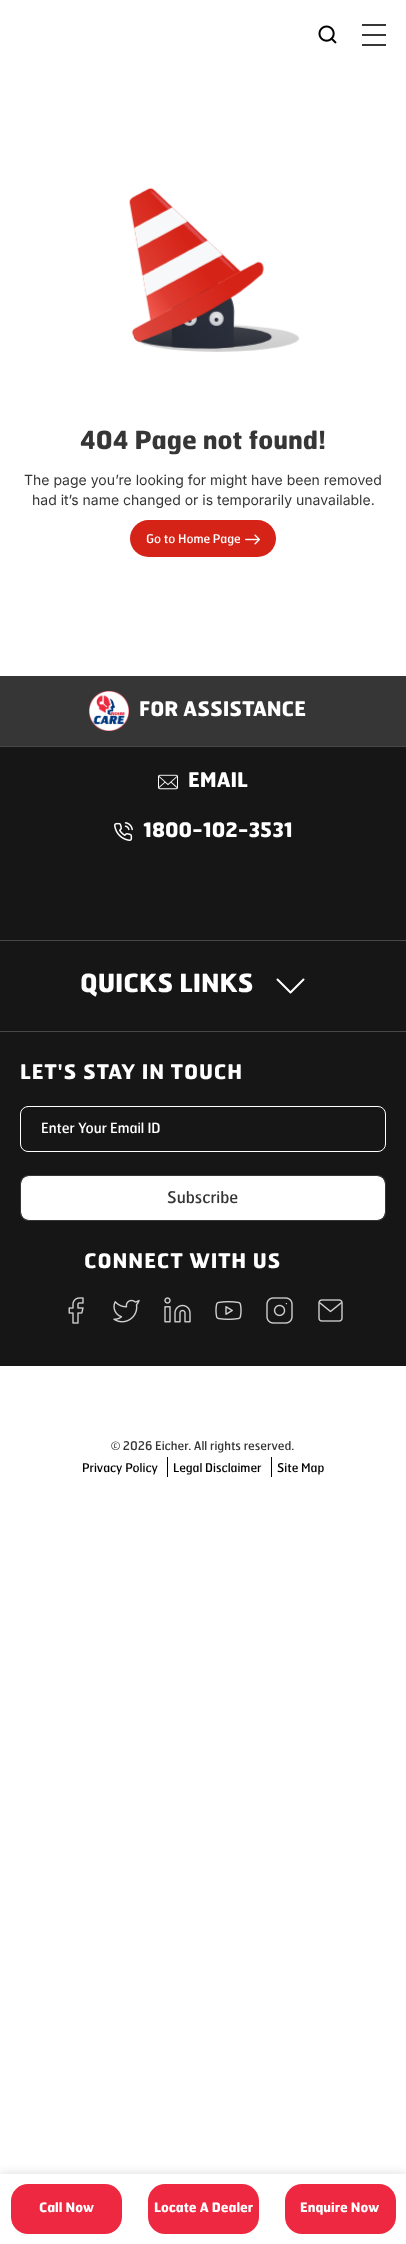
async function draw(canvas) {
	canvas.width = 406;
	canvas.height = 2244;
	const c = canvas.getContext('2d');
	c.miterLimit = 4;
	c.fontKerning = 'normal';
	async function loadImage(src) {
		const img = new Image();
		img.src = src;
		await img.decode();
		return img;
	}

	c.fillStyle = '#fff';
	c.fillRect(0, 0, 406, 2244);
	c.drawImage(await loadImage('img1.png'), 318, 25, 19, 19);
	c.drawImage(await loadImage('img2.png'), 362, 24, 24, 22);
	c.drawImage(await loadImage('img3.png'), 129, 187, 171, 165);
	c.font = 'bold 25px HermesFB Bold';
	c.fillStyle = '#363636';
	c.fillText('404 Page not found!', 80, 449);
	c.font = '14px Inter';
	c.fillText('The page you’re looking for might have been removed', 24, 485);
	c.fillText('had it’s name changed or is temporarily unavailable.', 32, 505);
	c.fillStyle = '#d62317';
	c.beginPath();
	c.roundRect(130, 520, 146, 37, 18.5);
	c.fill();
	c.font = '12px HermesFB';
	c.fillStyle = '#fff';
	c.fillText('Go to Home Page', 146, 543);
	c.drawImage(await loadImage('img4.png'), 245, 534, 15, 11);
	for (const [x, y, w, h, color] of [
		[0, 747, 406, 619, '#161616'],
		[0, 676, 406, 70, '#363636'],
		[0, 746, 406, 1, '#484848'],
	]) {
		c.fillStyle = color;
		c.fillRect(x, y, w, h);
	}
	c.drawImage(await loadImage('img5.png'), 89, 691, 40, 40);
	c.font = 'bold 20px HermesFB Bold';
	c.fillStyle = '#fff';
	c.fillText('FOR ASSISTANCE', 139, 716);
	c.drawImage(await loadImage('img6.png'), 158, 774, 20, 16);
	c.fillText('EMAIL', 188, 787);
	c.drawImage(await loadImage('img7.png'), 114, 822, 19, 19);
	c.fillText('1800-102-3531', 143, 837);
	c.fillStyle = '#484848';
	c.fillRect(0, 940, 406, 1);
	c.font = 'bold 25px HermesFB Bold';
	c.fillStyle = '#fff';
	c.fillText('QUICKS LINKS', 80, 992);
	c.beginPath();
	c.moveTo(277.5, 979.5);
	c.lineTo(290.5, 992.5);
	c.lineTo(303.5, 979.5);
	c.strokeStyle = '#fff';
	c.lineWidth = 2;
	c.lineCap = 'round';
	c.lineJoin = 'round';
	c.stroke();
	c.fillStyle = '#484848';
	c.fillRect(0, 1031, 406, 1);
	c.letterSpacing = '0.9px';
	c.font = 'bold 20px HermesFB Bold';
	c.fillStyle = '#fff';
	c.fillText('LET\'S STAY IN TOUCH', 20, 1079);
	c.beginPath();
	c.roundRect(20.5, 1106.5, 365, 45, 7.5);
	c.lineWidth = 1;
	c.lineJoin = 'miter';
	c.stroke();
	c.letterSpacing = '0px';
	c.font = '14px HermesFB';
	c.fillText('Enter Your Email ID', 41, 1133);
	c.beginPath();
	c.roundRect(20.5, 1175.5, 365, 45, 7.5);
	c.strokeStyle = '#363636';
	c.stroke();
	c.save();
	c.beginPath();
	c.roundRect(21, 1176, 364, 44, 7);
	c.clip();
	c.beginPath();
	c.roundRect(21, 1176, 364, 44, 8);
	c.fill();
	c.restore();
	c.font = '16px HermesFB';
	c.fillStyle = '#363636';
	c.fillText('Subscribe', 167, 1203);
	c.letterSpacing = '0.9px';
	c.font = 'bold 20px HermesFB Bold';
	c.fillStyle = '#fff';
	c.fillText('CONNECT WITH US', 84, 1268);
	c.drawImage(await loadImage('img8.png'), 68, 1297, 16, 27);
	c.drawImage(await loadImage('img9.png'), 113, 1299, 27, 24);
	c.drawImage(await loadImage('img10.png'), 164, 1297, 27, 26);
	c.drawImage(await loadImage('img11.png'), 215, 1301, 27, 19);
	c.drawImage(await loadImage('img12.png'), 266, 1297, 27, 27);
	c.drawImage(await loadImage('img13.png'), 318, 1299, 25, 23);
	c.letterSpacing = '0px';
	c.font = '12px HermesFB';
	c.fillStyle = '#363636';
	c.fillText('© 2026 Eicher. All rights reserved.', 111, 1450);
	c.fillStyle = '#000';
	c.fillText('Privacy Policy', 82, 1472);
	c.fillRect(167, 1457, 1, 20);
	c.fillText('Legal Disclaimer', 173, 1472);
	c.fillRect(271, 1457, 1, 20);
	c.fillText('Site Map', 277, 1472);
	c.fillStyle = '#0000001a';
	c.filter = 'blur(4px)';
	c.beginPath();
	c.rect(0, 2172, 406, 70);
	c.fill();
	c.filter = 'none';
	c.fillStyle = '#fff';
	c.fillRect(0, 2174, 406, 70);
	c.fillStyle = '#ee2840';
	c.beginPath();
	c.roundRect(11, 2184, 111, 50, 17);
	c.fill();
	c.font = 'bold 13px HermesFB Bold';
	c.fillStyle = '#fff';
	c.fillText('Call Now', 39, 2212);
	c.fillStyle = '#ee2840';
	c.beginPath();
	c.roundRect(148, 2184, 111, 50, 17);
	c.fill();
	c.fillStyle = '#fff';
	c.fillText('Locate A Dealer', 154, 2212);
	c.fillStyle = '#ee2840';
	c.beginPath();
	c.roundRect(285, 2184, 111, 50, 17);
	c.fill();
	c.fillStyle = '#fff';
	c.fillText('Enquire Now', 300, 2212);
}

draw(document.querySelector('canvas'));
